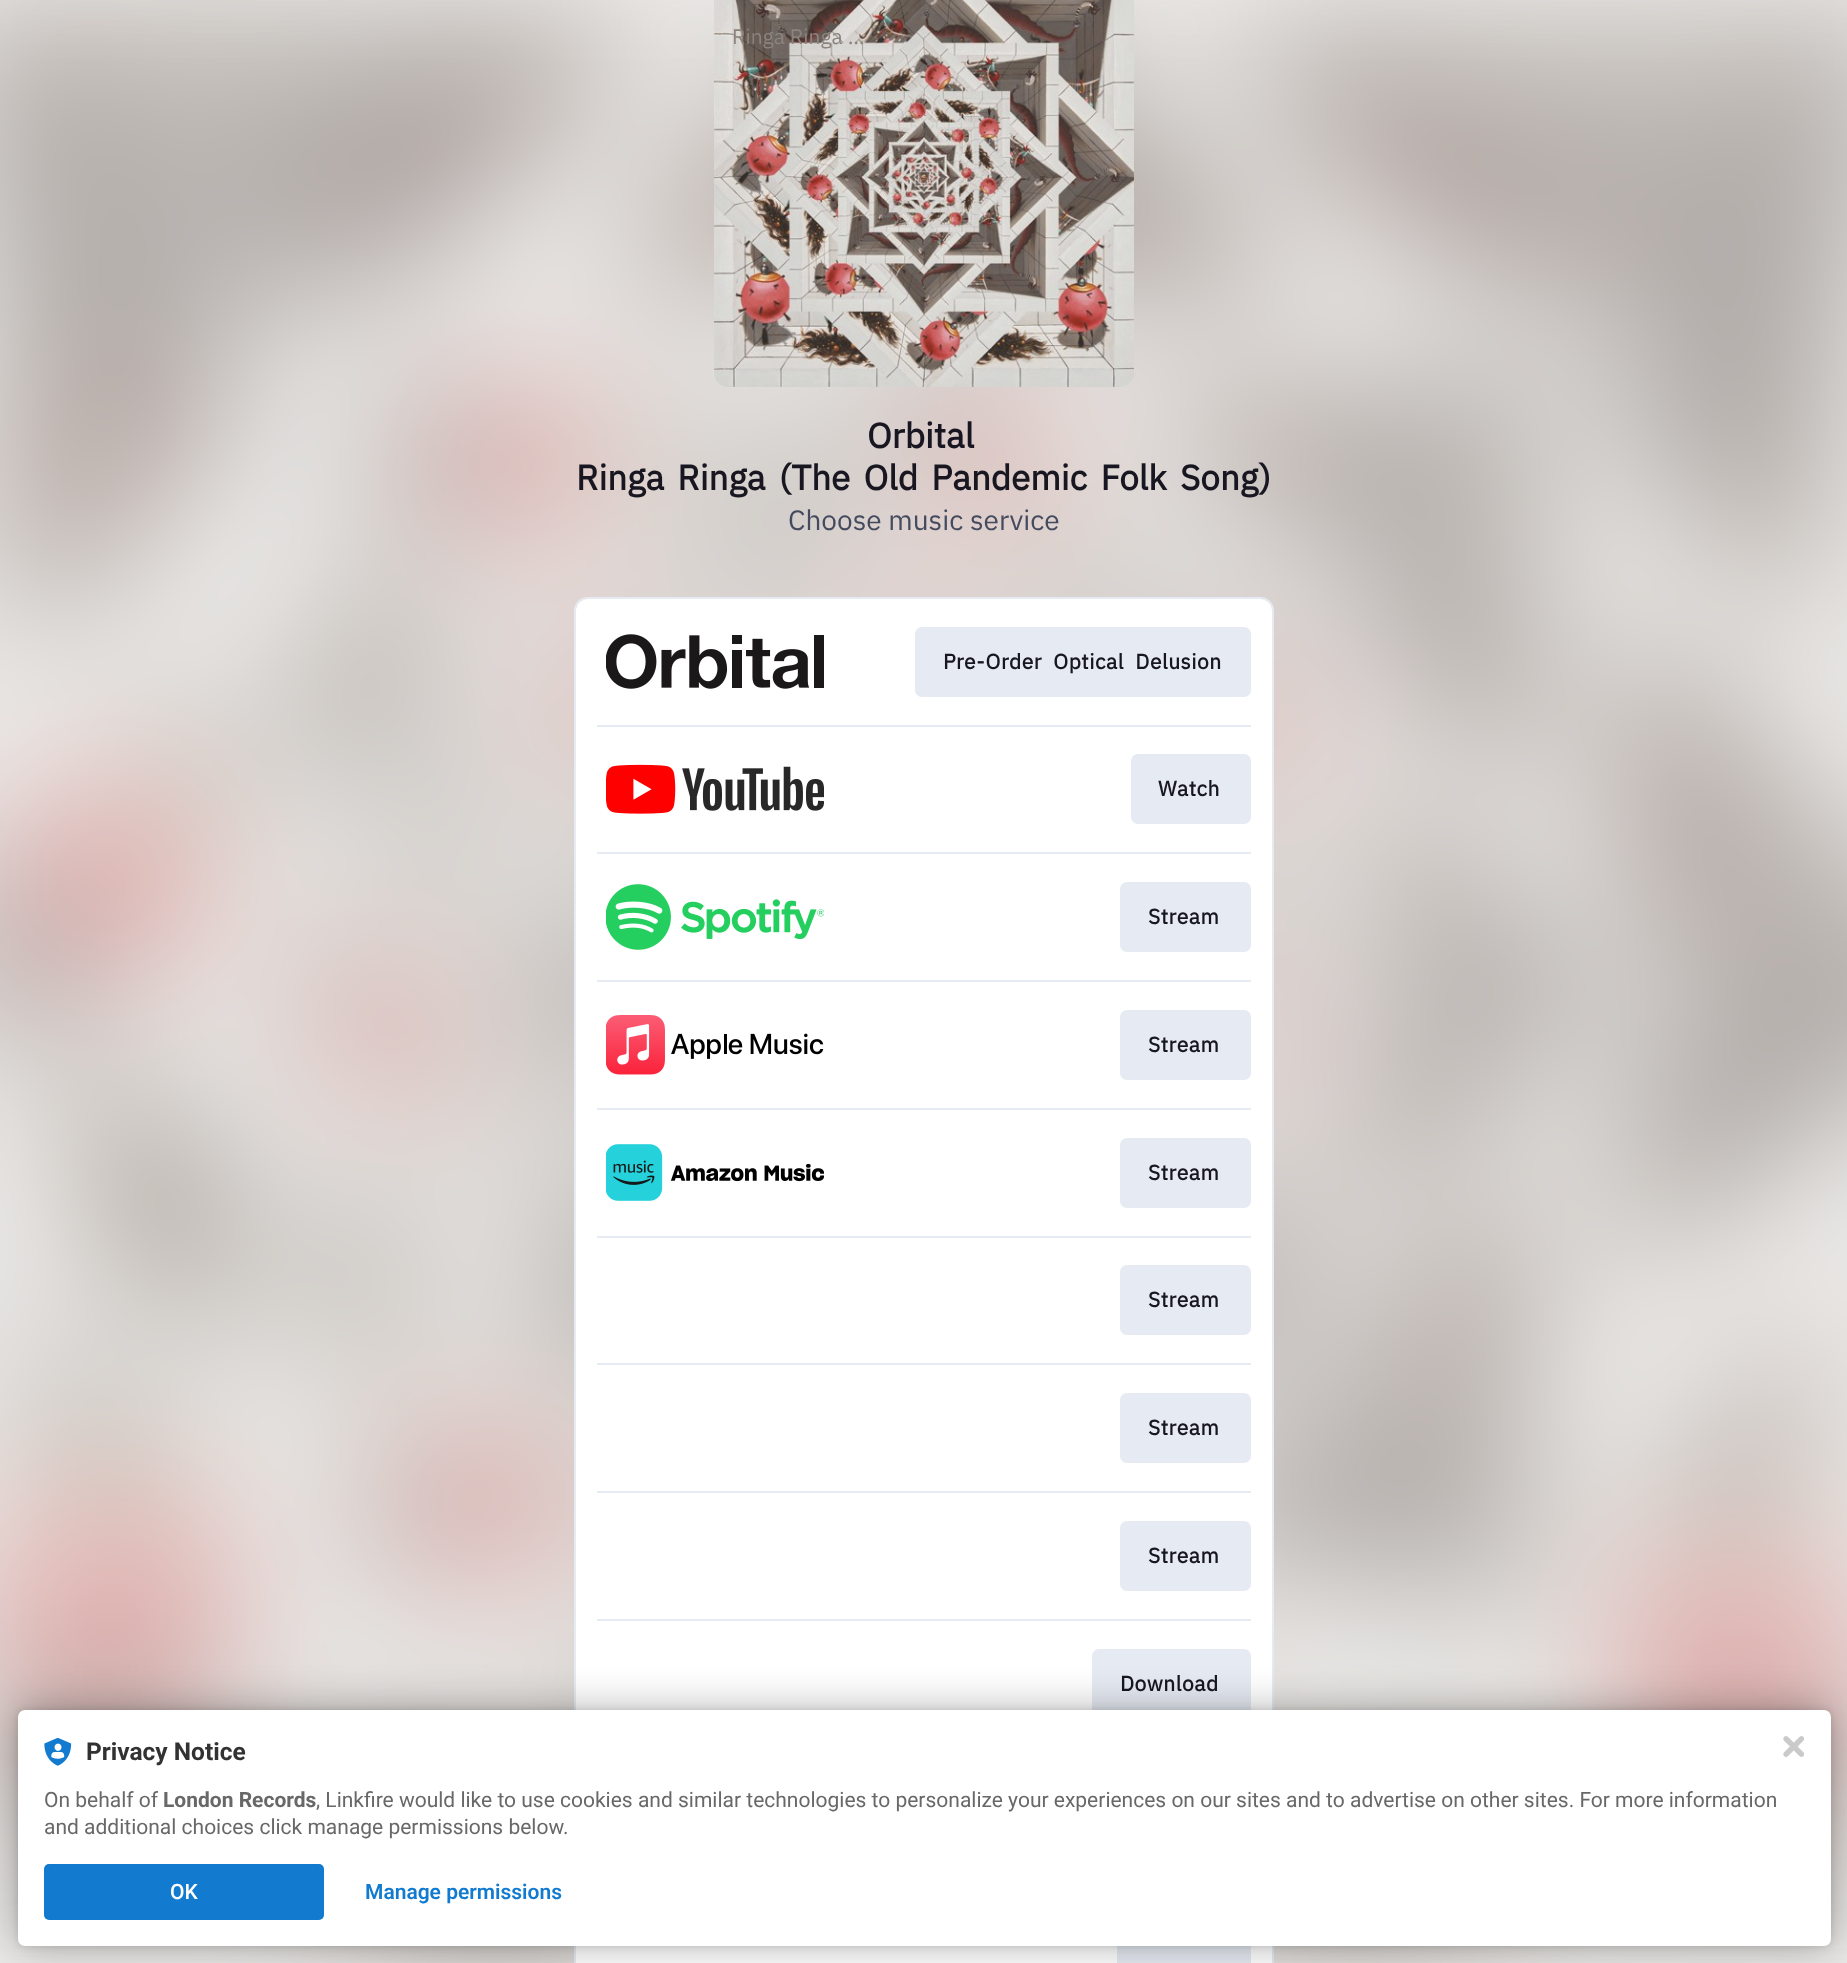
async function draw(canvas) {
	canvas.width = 1847;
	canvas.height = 1963;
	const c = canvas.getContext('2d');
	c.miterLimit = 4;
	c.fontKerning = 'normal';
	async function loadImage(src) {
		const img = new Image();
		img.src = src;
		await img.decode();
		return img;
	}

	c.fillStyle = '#fff';
	c.fillRect(0, 0, 1847, 1963);
	c.drawImage(await loadImage('img1.png'), 0, 0, 1847, 1963);
	c.drawImage(await loadImage('img2.png'), 714, 0, 420, 387);
	c.font = '21px IBM Plex Sans';
	c.fillStyle = '#8d837e';
	c.fillText('Ringa Ringa …', 732, 44);
	c.font = 'bold 35px IBM Plex Sans';
	c.fillStyle = '#181721';
	c.fillText('Orbital', 867, 448);
	c.wordSpacing = '5px';
	c.fillText('Ringa Ringa (The Old Pandemic Folk Song)', 576, 490);
	c.wordSpacing = '0px';
	c.font = '28px IBM Plex Sans';
	c.fillStyle = '#454b5f';
	c.fillText('Choose music service', 788, 530);
	c.beginPath();
	c.roundRect(575, 598, 698, 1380, 13);
	c.strokeStyle = '#e6eaf2';
	c.lineWidth = 2;
	c.stroke();
	c.fillStyle = '#fff';
	c.beginPath();
	c.roundRect(576, 599, 696, 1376, 12);
	c.fill();
	c.drawImage(await loadImage('img3.png'), 606, 634, 218, 55);
	c.fillStyle = '#e6eaf2';
	c.beginPath();
	c.roundRect(915, 627, 336, 70, 7);
	c.fill();
	c.letterSpacing = '0.5px';
	c.wordSpacing = '6px';
	c.font = 'bold 21px IBM Plex Sans';
	c.fillStyle = '#181721';
	c.fillText('Pre-Order Optical Delusion', 943, 669);
	c.fillStyle = '#e6eaf2';
	c.fillRect(597, 725, 654, 2);
	c.drawImage(await loadImage('img4.png'), 606, 764, 218, 50);
	c.beginPath();
	c.roundRect(1131, 754, 120, 70, 7);
	c.fill();
	c.wordSpacing = '0px';
	c.fillStyle = '#181721';
	c.fillText('Watch', 1158, 796);
	c.fillStyle = '#e6eaf2';
	c.fillRect(597, 852, 654, 2);
	c.drawImage(await loadImage('img5.png'), 606, 884, 218, 66);
	c.beginPath();
	c.roundRect(1120, 882, 131, 70, 7);
	c.fill();
	c.fillStyle = '#181721';
	c.fillText('Stream', 1148, 924);
	c.fillStyle = '#e6eaf2';
	c.fillRect(597, 980, 654, 2);
	c.drawImage(await loadImage('img6.png'), 606, 1015, 218, 60);
	c.beginPath();
	c.roundRect(1120, 1010, 131, 70, 7);
	c.fill();
	c.fillStyle = '#181721';
	c.fillText('Stream', 1148, 1052);
	c.fillStyle = '#e6eaf2';
	c.fillRect(597, 1108, 654, 2);
	c.drawImage(await loadImage('img7.png'), 606, 1144, 218, 57);
	c.beginPath();
	c.roundRect(1120, 1138, 131, 70, 7);
	c.fill();
	c.fillStyle = '#181721';
	c.fillText('Stream', 1148, 1180);
	c.fillStyle = '#e6eaf2';
	c.fillRect(597, 1236, 654, 2);
	c.beginPath();
	c.roundRect(1120, 1265, 131, 70, 7);
	c.fill();
	c.fillStyle = '#181721';
	c.fillText('Stream', 1148, 1307);
	c.fillStyle = '#e6eaf2';
	c.fillRect(597, 1363, 654, 2);
	c.beginPath();
	c.roundRect(1120, 1393, 131, 70, 7);
	c.fill();
	c.fillStyle = '#181721';
	c.fillText('Stream', 1148, 1435);
	c.fillStyle = '#e6eaf2';
	c.fillRect(597, 1491, 654, 2);
	c.beginPath();
	c.roundRect(1120, 1521, 131, 70, 7);
	c.fill();
	c.fillStyle = '#181721';
	c.fillText('Stream', 1148, 1563);
	c.fillStyle = '#e6eaf2';
	c.fillRect(597, 1619, 654, 2);
	c.beginPath();
	c.roundRect(1092, 1649, 159, 70, 7);
	c.fill();
	c.fillStyle = '#181721';
	c.fillText('Download', 1120, 1691);
	c.fillStyle = '#e6eaf2';
	c.fillRect(1117, 1946, 134, 17);
	c.fillStyle = '#0000001f';
	c.filter = 'blur(3.5px)';
	c.beginPath();
	c.roundRect(18, 1710, 1813, 236, 7);
	c.fill();
	c.filter = 'none';
	c.fillStyle = '#0000004d';
	c.filter = 'blur(21px)';
	c.beginPath();
	c.roundRect(18, 1710, 1813, 236, 7);
	c.fill();
	c.filter = 'none';
	c.fillStyle = '#fff';
	c.beginPath();
	c.roundRect(18, 1710, 1813, 236, 7);
	c.fill();
	c.drawImage(await loadImage('img8.png'), 44, 1738, 28, 28);
	c.letterSpacing = '0px';
	c.font = 'bold 24.5px Roboto';
	c.fillStyle = '#323232';
	c.fillText('Privacy Notice', 86, 1760);
	c.font = '21px Roboto';
	c.fillStyle = '#686868';
	c.fillText('On behalf of', 44, 1807);
	c.font = 'bold 21px Roboto';
	c.fillText('London Records', 163, 1807);
	c.font = '21px Roboto';
	c.fillText(', Linkfire would like to use cookies and similar technologies to personalize your experiences on our sites and to advertise on other sites. For more information', 316, 1807);
	c.fillText('and additional choices click manage permissions below.', 44, 1834);
	c.fillStyle = '#137bcf';
	c.beginPath();
	c.roundRect(44, 1864, 280, 56, 5);
	c.fill();
	c.font = '500 21px Roboto';
	c.fillStyle = '#fff';
	c.fillText('OK', 170, 1899);
	c.font = '600 21px Roboto';
	c.fillStyle = '#137bcf';
	c.fillText('Manage permissions', 365, 1899);
	c.drawImage(await loadImage('img9.png'), 1783, 1736, 21, 21);
}

draw(document.querySelector('canvas'));
